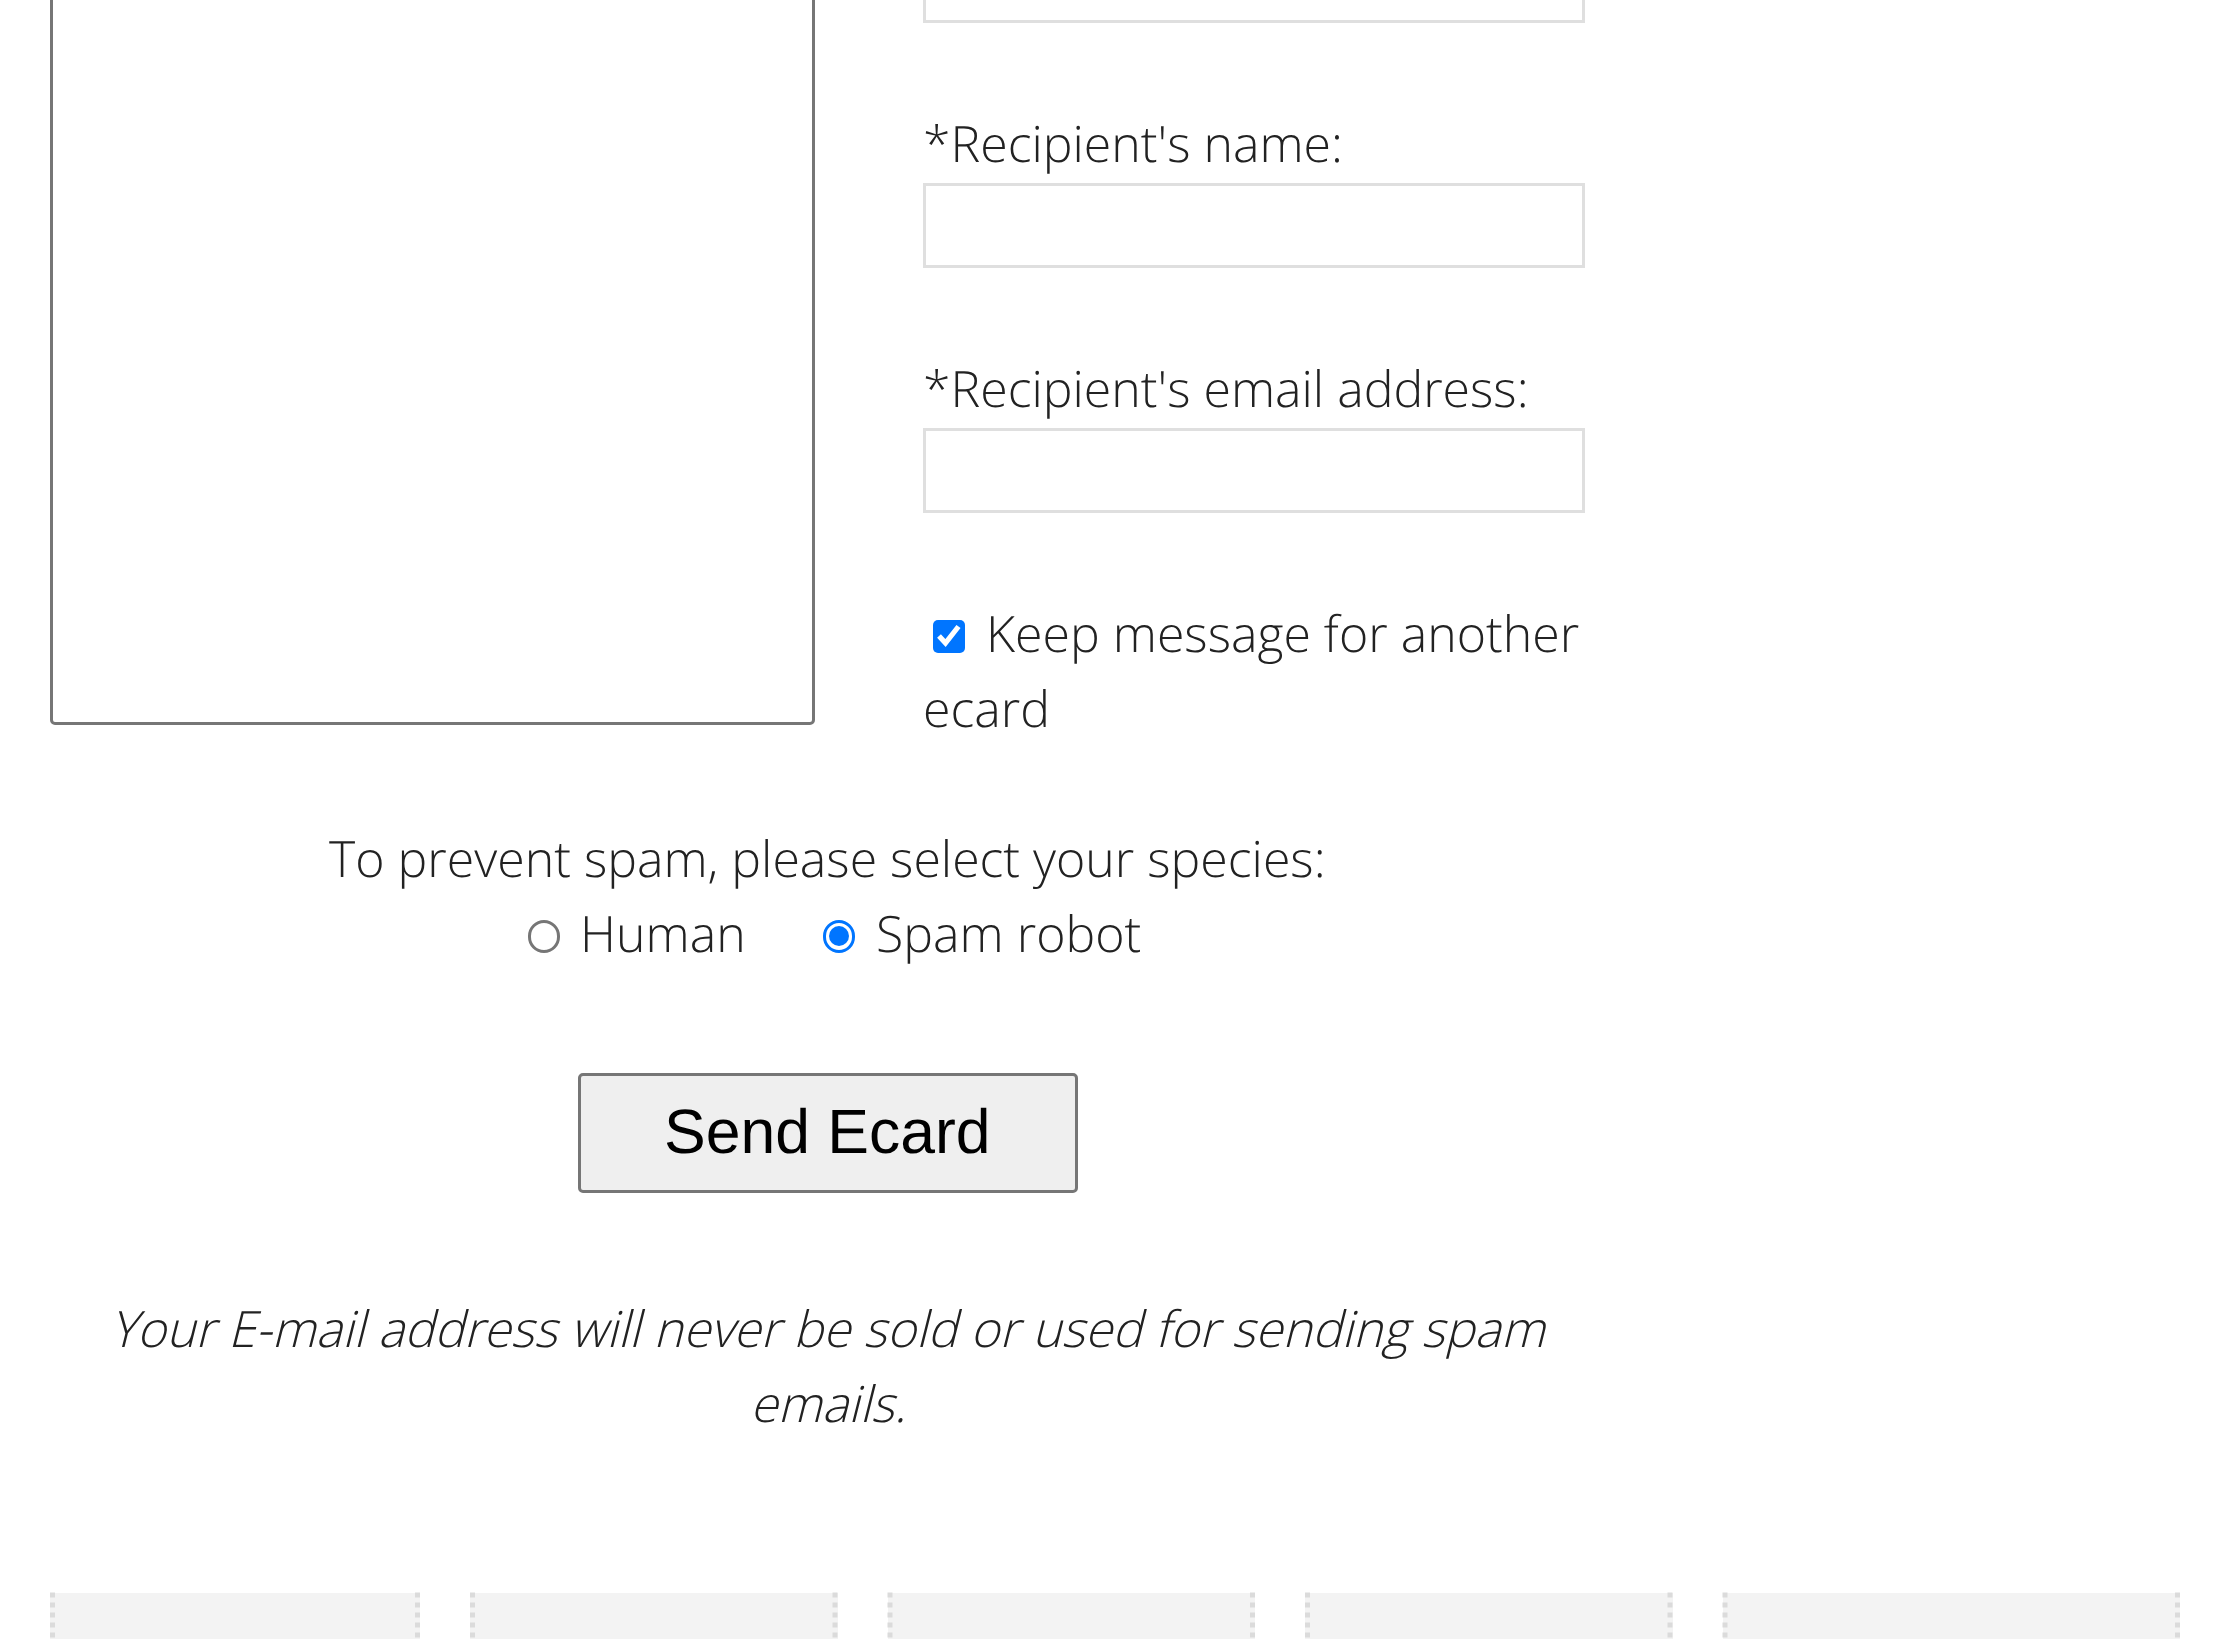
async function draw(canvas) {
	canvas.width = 2230;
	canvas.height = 1639;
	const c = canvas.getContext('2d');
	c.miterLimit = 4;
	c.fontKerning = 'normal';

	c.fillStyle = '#fff';
	c.fillRect(0, 0, 2230, 1639);
	c.beginPath();
	c.roundRect(51.5, -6.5, 762, 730, 3.5);
	c.strokeStyle = '#767676';
	c.lineWidth = 3;
	c.stroke();
	c.strokeStyle = '#dfdfdf';
	c.strokeRect(924.5, -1.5, 659, 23);
	c.font = '300 50px Open Sans';
	c.fillStyle = '#222';
	c.fillText('*Recipient\'s name:', 923, 162);
	c.strokeRect(924.5, 184.5, 659, 82);
	c.fillText('*Recipient\'s email address:', 923, 407);
	c.strokeRect(924.5, 429.5, 659, 82);
	c.fillStyle = '#0075ff';
	c.beginPath();
	c.roundRect(933, 620, 32, 33, 5);
	c.fill();
	c.beginPath();
	c.moveTo(939, 636);
	c.lineTo(945.5, 643);
	c.lineTo(958.5, 626.5);
	c.strokeStyle = '#fff';
	c.lineWidth = 5.2;
	c.stroke();
	c.fillStyle = '#222';
	for (const [text, x, y] of [
		['Keep message for another', 986, 652],
		['ecard', 923, 727],
		['To prevent spam, please select your species:', 329, 877],
	]) {
		c.fillText(text, x, y);
	}
	c.beginPath();
	c.roundRect(529.5, 921.5, 29, 30, 14.5);
	c.strokeStyle = '#767676';
	c.lineWidth = 3;
	c.stroke();
	c.fillText('Human', 580, 952);
	c.beginPath();
	c.roundRect(824.5, 921.5, 29, 30, 14.5);
	c.strokeStyle = '#0075ff';
	c.stroke();
	c.fillStyle = '#0075ff';
	c.beginPath();
	c.arc(839, 936, 10, 0, 2 * Math.PI);
	c.fill();
	c.fillStyle = '#222';
	c.fillText('Spam robot', 876, 952);
	c.fillStyle = '#efefef';
	c.beginPath();
	c.roundRect(579.5, 1074.5, 497, 117, 3.5);
	c.fill();
	c.strokeStyle = '#767676';
	c.stroke();
	c.font = '62.5px Liberation Sans';
	c.fillStyle = '#000';
	c.fillText('Send Ecard', 664, 1153);
	c.font = 'italic 300 50px Open Sans';
	c.fillStyle = '#222';
	c.fillText('Your E-mail address will never be sold or used for sending spam', 110, 1347);
	c.fillText('emails.', 750, 1422);
	c.fillStyle = '#f3f3f3';
	c.fillRect(50, 1593, 370, 46);
	c.beginPath();
	c.moveTo(417.5, 1592.5);
	c.lineTo(417.5, 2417.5);
	c.strokeStyle = '#dbdbdb';
	c.lineWidth = 5;
	c.setLineDash([5, 5]);
	c.stroke();
	c.beginPath();
	c.moveTo(52.5, 1592.5);
	c.lineTo(52.5, 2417.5);
	c.stroke();
	c.fillRect(470, 1593, 368, 46);
	c.beginPath();
	c.moveTo(835, 1592.5);
	c.lineTo(835, 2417.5);
	c.stroke();
	c.beginPath();
	c.moveTo(472.5, 1592.5);
	c.lineTo(472.5, 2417.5);
	c.stroke();
	c.fillRect(888, 1593, 367, 46);
	c.beginPath();
	c.moveTo(1252.5, 1592.5);
	c.lineTo(1252.5, 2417.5);
	c.stroke();
	c.beginPath();
	c.moveTo(890, 1592.5);
	c.lineTo(890, 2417.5);
	c.stroke();
	c.fillRect(1305, 1593, 368, 46);
	c.beginPath();
	c.moveTo(1670, 1592.5);
	c.lineTo(1670, 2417.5);
	c.stroke();
	c.beginPath();
	c.moveTo(1307.5, 1592.5);
	c.lineTo(1307.5, 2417.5);
	c.stroke();
	c.fillRect(1723, 1593, 457, 46);
	c.beginPath();
	c.moveTo(2177.5, 1592.5);
	c.lineTo(2177.5, 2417.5);
	c.stroke();
	c.beginPath();
	c.moveTo(1725, 1592.5);
	c.lineTo(1725, 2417.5);
	c.stroke();
}

draw(document.querySelector('canvas'));
